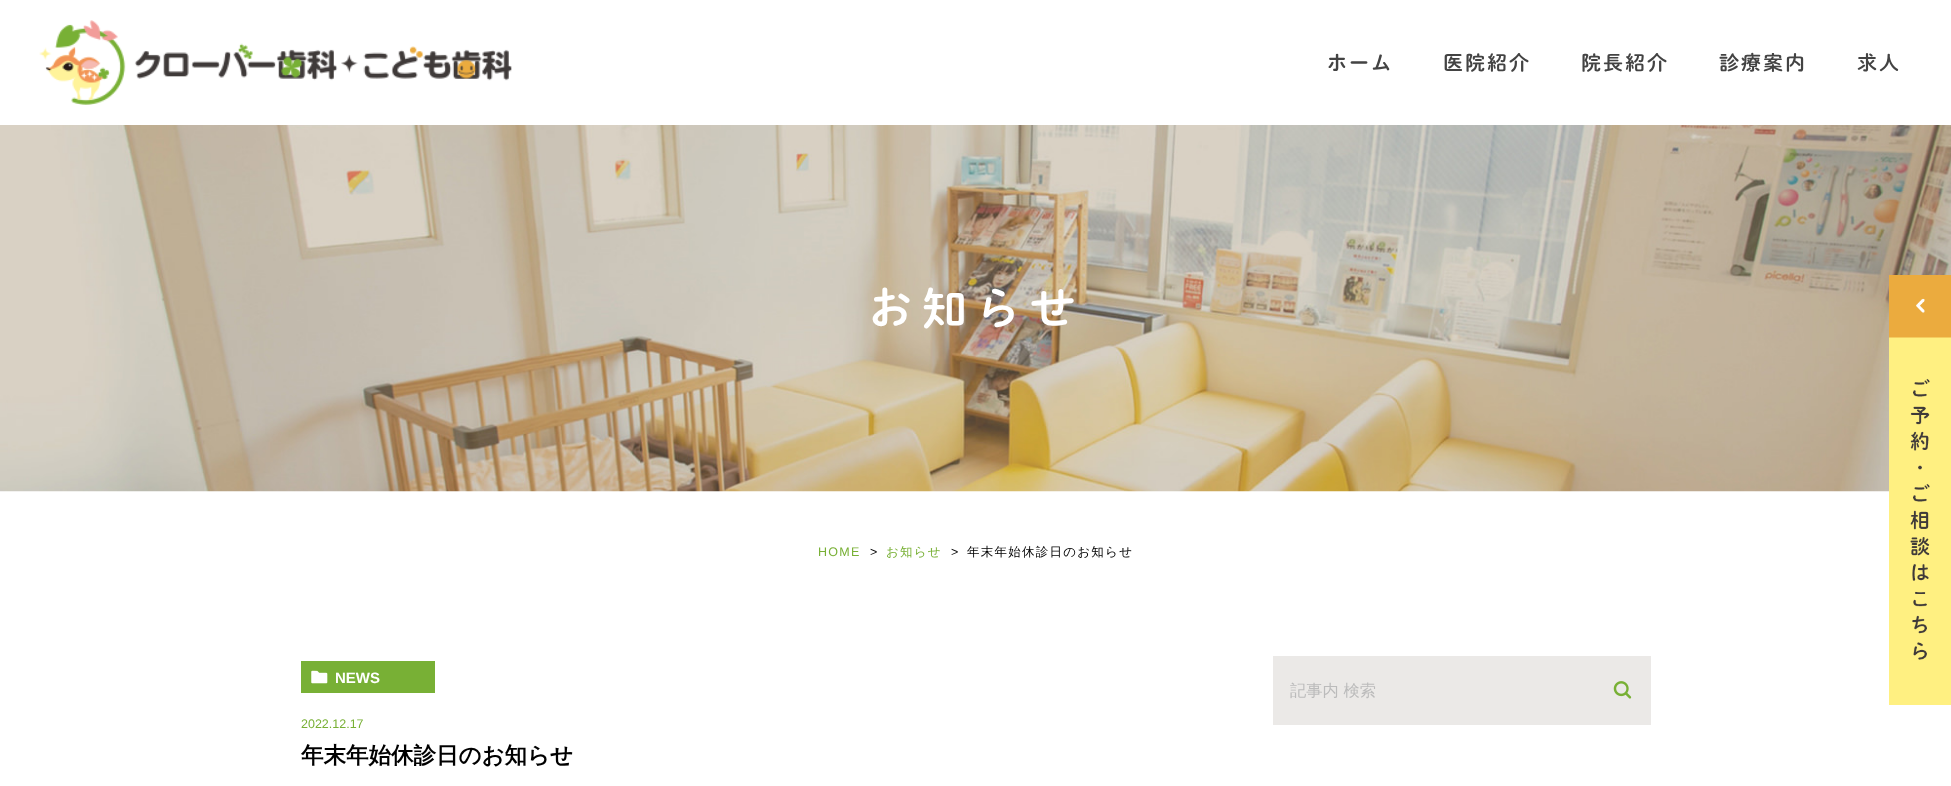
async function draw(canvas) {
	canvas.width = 1951;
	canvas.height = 786;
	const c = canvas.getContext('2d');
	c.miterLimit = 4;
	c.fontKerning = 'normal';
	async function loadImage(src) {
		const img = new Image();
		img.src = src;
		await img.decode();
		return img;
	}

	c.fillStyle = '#fff';
	c.fillRect(0, 0, 1951, 786);
	c.drawImage(await loadImage('img1.png'), 39, 20, 473, 85);
	c.letterSpacing = '2px';
	c.font = '600 20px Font';
	c.fillStyle = '#434343';
	for (const [text, x, y] of [
		['ホーム', 1327, 70],
		['医院紹介', 1443, 70],
		['院長紹介', 1581, 70],
		['診療案内', 1719, 70],
		['求人', 1857, 70],
	]) {
		c.fillText(text, x, y);
	}
	c.drawImage(await loadImage('img2.png'), 0, 125, 1951, 367);
	c.letterSpacing = '9px';
	c.font = '600 45px Font';
	c.fillStyle = '#fff';
	c.fillText('お知らせ', 868, 325);
	c.letterSpacing = '1.25px';
	c.font = '12.5px Liberation Sans';
	c.fillStyle = '#78b035';
	c.fillText('HOME', 818, 556);
	c.fillStyle = '#000';
	c.fillText('>', 870, 556);
	c.font = '500 12.5px WenQuanYi Zen Hei';
	c.fillStyle = '#78b035';
	c.fillText('お知らせ', 886, 556);
	c.font = '12.5px Liberation Sans';
	c.fillStyle = '#000';
	c.fillText('>', 951, 556);
	c.font = '500 12.5px WenQuanYi Zen Hei';
	c.fillText('年末年始休診日のお知らせ', 967, 556);
	c.fillStyle = '#78b035';
	c.fillRect(301, 661, 134, 32);
	c.drawImage(await loadImage('img3.png'), 311, 670, 17, 14);
	c.letterSpacing = '0px';
	c.font = 'bold 15px Liberation Sans';
	c.fillStyle = '#fff';
	c.fillText('NEWS', 335, 683);
	c.font = '12.5px Liberation Sans';
	c.fillStyle = '#78b035';
	c.fillText('2022.12.17', 301, 728);
	c.font = 'bold 22.5px WenQuanYi Zen Hei';
	c.fillStyle = '#000';
	c.fillText('年末年始休診日のお知らせ', 301, 763);
	c.fillStyle = '#ebe9e7';
	c.fillRect(1273, 656, 378, 69);
	c.font = '500 16.25px WenQuanYi Zen Hei';
	c.fillStyle = '#bbb';
	c.fillText('記事内 検索', 1290, 696);
	c.drawImage(await loadImage('img4.png'), 1613, 681, 19, 18);
	c.drawImage(await loadImage('img5.png'), 1889, 275, 62, 430);
}

draw(document.querySelector('canvas'));
